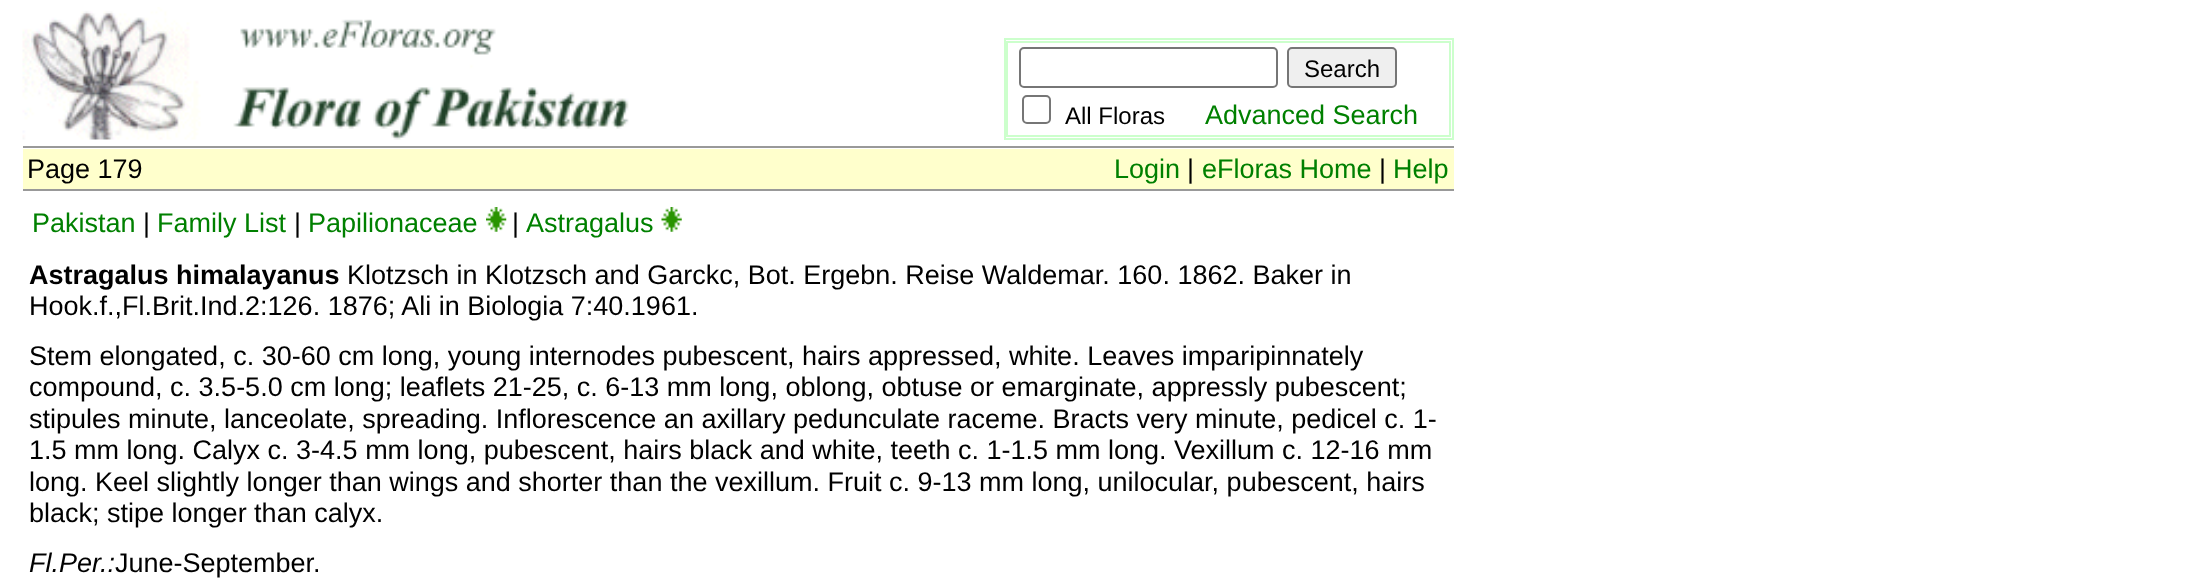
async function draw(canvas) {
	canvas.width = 2208;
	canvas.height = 578;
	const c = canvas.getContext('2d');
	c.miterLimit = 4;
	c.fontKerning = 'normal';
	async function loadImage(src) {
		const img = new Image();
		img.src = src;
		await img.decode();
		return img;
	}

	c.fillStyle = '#fff';
	c.fillRect(0, 0, 2208, 578);
	c.drawImage(await loadImage('img1.png'), 22, 7, 607, 133);
	c.strokeStyle = '#cfc';
	c.lineWidth = 2;
	c.strokeRect(1005, 39, 448, 100);
	c.strokeRect(1007, 42, 443, 94);
	c.beginPath();
	c.roundRect(1020, 48, 257, 39, 4);
	c.strokeStyle = '#767676';
	c.stroke();
	c.fillStyle = '#efefef';
	c.beginPath();
	c.roundRect(1288, 48, 108, 39, 4);
	c.fill();
	c.stroke();
	c.font = '24px Liberation Sans';
	c.fillStyle = '#000';
	c.fillText('Search', 1304, 77);
	c.beginPath();
	c.roundRect(1023, 96, 27, 27, 4);
	c.stroke();
	c.fillText('All Floras', 1065, 124);
	c.font = '27px Liberation Sans';
	c.fillStyle = '#008000';
	c.fillText('Advanced Search', 1205, 124);
	c.fillStyle = '#999';
	c.fillRect(23, 146, 1431, 2);
	c.fillStyle = '#ffc';
	c.fillRect(23, 149, 1431, 40);
	c.fillStyle = '#000';
	c.fillText('Page 179', 27, 178);
	c.fillStyle = '#008000';
	c.fillText('Login', 1114, 178);
	c.fillStyle = '#000';
	c.fillText('|', 1187, 178);
	c.fillStyle = '#008000';
	c.fillText('eFloras Home', 1202, 178);
	c.fillStyle = '#000';
	c.fillText('|', 1379, 178);
	c.fillStyle = '#008000';
	c.fillText('Help', 1393, 178);
	c.fillStyle = '#999';
	c.fillRect(23, 189, 1431, 2);
	c.fillStyle = '#008000';
	c.fillText('Pakistan', 32, 232);
	c.fillStyle = '#000';
	c.fillText('|', 143, 232);
	c.fillStyle = '#008000';
	c.fillText('Family List', 157, 232);
	c.fillStyle = '#000';
	c.fillText('|', 294, 232);
	c.fillStyle = '#008000';
	c.fillText('Papilionaceae', 308, 232);
	c.drawImage(await loadImage('img2.png'), 486, 207, 21, 25);
	c.fillStyle = '#000';
	c.fillText('|', 512, 232);
	c.fillStyle = '#008000';
	c.fillText('Astragalus', 526, 232);
	c.drawImage(await loadImage('img3.png'), 661, 207, 21, 25);
	c.font = 'bold 27px Liberation Sans';
	c.fillStyle = '#000';
	c.fillText('Astragalus himalayanus', 29, 284);
	c.font = '27px Liberation Sans';
	for (const [text, x, y] of [
		['Klotzsch in Klotzsch and Garckc, Bot. Ergebn. Reise Waldemar. 160. 1862. Baker in', 347, 284],
		['Hook.f.,Fl.Brit.Ind.2:126. 1876; Ali in Biologia 7:40.1961.', 29, 315],
		['Stem elongated, c. 30-60 cm long, young internodes pubescent, hairs appressed, white. Leaves imparipinnately', 29, 365],
		['compound, c. 3.5-5.0 cm long; leaflets 21-25, c. 6-13 mm long, oblong, obtuse or emarginate, appressly pubescent;', 29, 396],
		['stipules minute, lanceolate, spreading. Inflorescence an axillary pedunculate raceme. Bracts very minute, pedicel c. 1-', 29, 428],
		['1.5 mm long. Calyx c. 3-4.5 mm long, pubescent, hairs black and white, teeth c. 1-1.5 mm long. Vexillum c. 12-16 mm', 29, 459],
		['long. Keel slightly longer than wings and shorter than the vexillum. Fruit c. 9-13 mm long, unilocular, pubescent, hairs', 29, 491],
		['black; stipe longer than calyx.', 29, 522],
	]) {
		c.fillText(text, x, y);
	}
	c.font = 'italic 27px Liberation Sans';
	c.fillText('Fl.Per.:', 29, 572);
	c.font = '27px Liberation Sans';
	c.fillText('June-September.', 115, 572);
}

draw(document.querySelector('canvas'));
